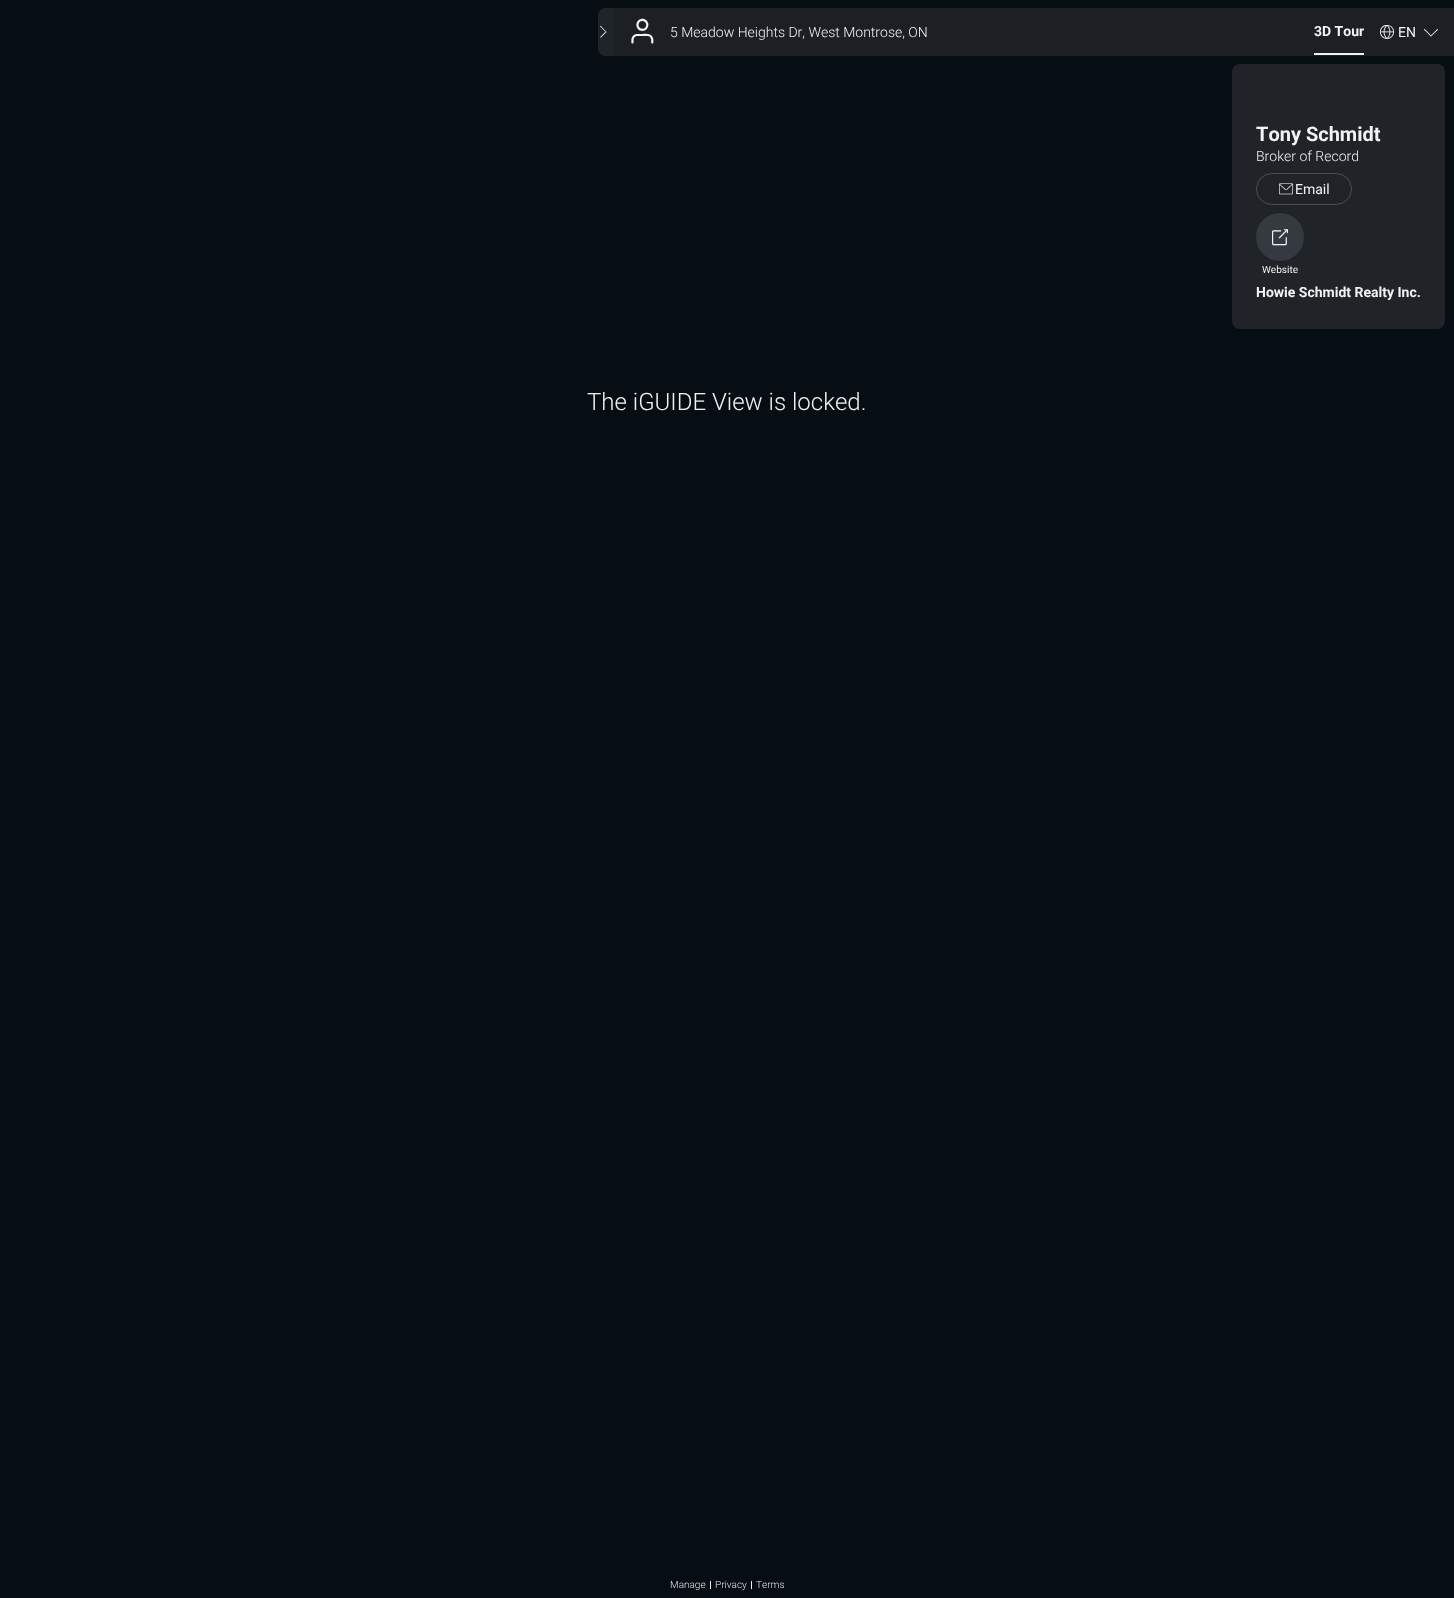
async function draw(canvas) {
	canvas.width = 1454;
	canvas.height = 1598;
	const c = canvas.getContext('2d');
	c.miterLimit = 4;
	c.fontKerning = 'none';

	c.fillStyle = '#060d13';
	c.fillRect(0, 0, 1454, 1598);
	c.fillStyle = '#1c2025';
	c.beginPath();
	c.roundRect(598, 8, 856, 48, [8, 0, 0, 8]);
	c.fill();
	c.fillStyle = '#212529cc';
	c.beginPath();
	c.roundRect(598, 8, 16, 48, [8, 0, 0, 8]);
	c.fill();
	c.font = '12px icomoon';
	c.fillStyle = '#f2f2f2';
	c.fillText('🕃', 600, 37);
	c.font = 'bold 24px icomoon';
	c.fillText('🕱', 630, 42);
	c.font = '300 14px Roboto';
	c.fillText('5 Meadow Heights Dr, West Montrose, ON', 670, 37);
	c.fillRect(1314, 53, 50, 2);
	c.font = 'bold 14px Roboto';
	c.fillText('3D Tour', 1314, 36);
	c.font = '14px icomoon';
	c.fillText('🖬', 1380, 38);
	c.font = '14px Roboto';
	c.fillText('EN', 1398, 37);
	c.font = '14px icomoon';
	c.fillText('🖭', 1424, 38);
	c.fillStyle = '#202428';
	c.beginPath();
	c.roundRect(1232, 64, 213, 265, 8);
	c.fill();
	c.font = 'bold 20px Roboto';
	c.fillStyle = '#f2f2f2';
	c.fillText('Tony Schmidt', 1256, 141);
	c.font = '300 14px Roboto';
	c.fillText('Broker of Record', 1256, 161);
	c.beginPath();
	c.roundRect(1256.5, 173.5, 95, 31, 15.5);
	c.strokeStyle = '#495057';
	c.stroke();
	c.font = '14px icomoon';
	c.fillText('🖛', 1279, 195);
	c.font = '14px Roboto';
	c.fillText('Email', 1295, 194);
	c.fillStyle = '#343a40';
	c.beginPath();
	c.arc(1280, 237, 24, 0, 2 * Math.PI);
	c.fill();
	c.font = '16px icomoon';
	c.fillStyle = '#f2f2f2';
	c.fillText('🗴', 1272, 244);
	c.font = '10px Roboto';
	c.fillText('Website', 1262, 273);
	c.font = 'bold 14px Roboto';
	c.fillText('Howie Schmidt Realty Inc.', 1256, 297);
	c.font = '300 24px Roboto';
	c.fillText('The iGUIDE View is locked.', 587, 410);
	c.font = '300 10px Roboto';
	c.fillStyle = '#e5e5e6';
	c.fillText('Manage', 670, 1588);
	c.fillStyle = '#f2f2f2';
	c.fillRect(710, 1581, 1, 8);
	c.fillStyle = '#e5e5e6';
	c.fillText('Privacy', 715, 1588);
	c.fillStyle = '#f2f2f2';
	c.fillRect(751, 1581, 1, 8);
	c.fillStyle = '#e5e5e6';
	c.fillText('Terms', 756, 1588);
}

draw(document.querySelector('canvas'));
